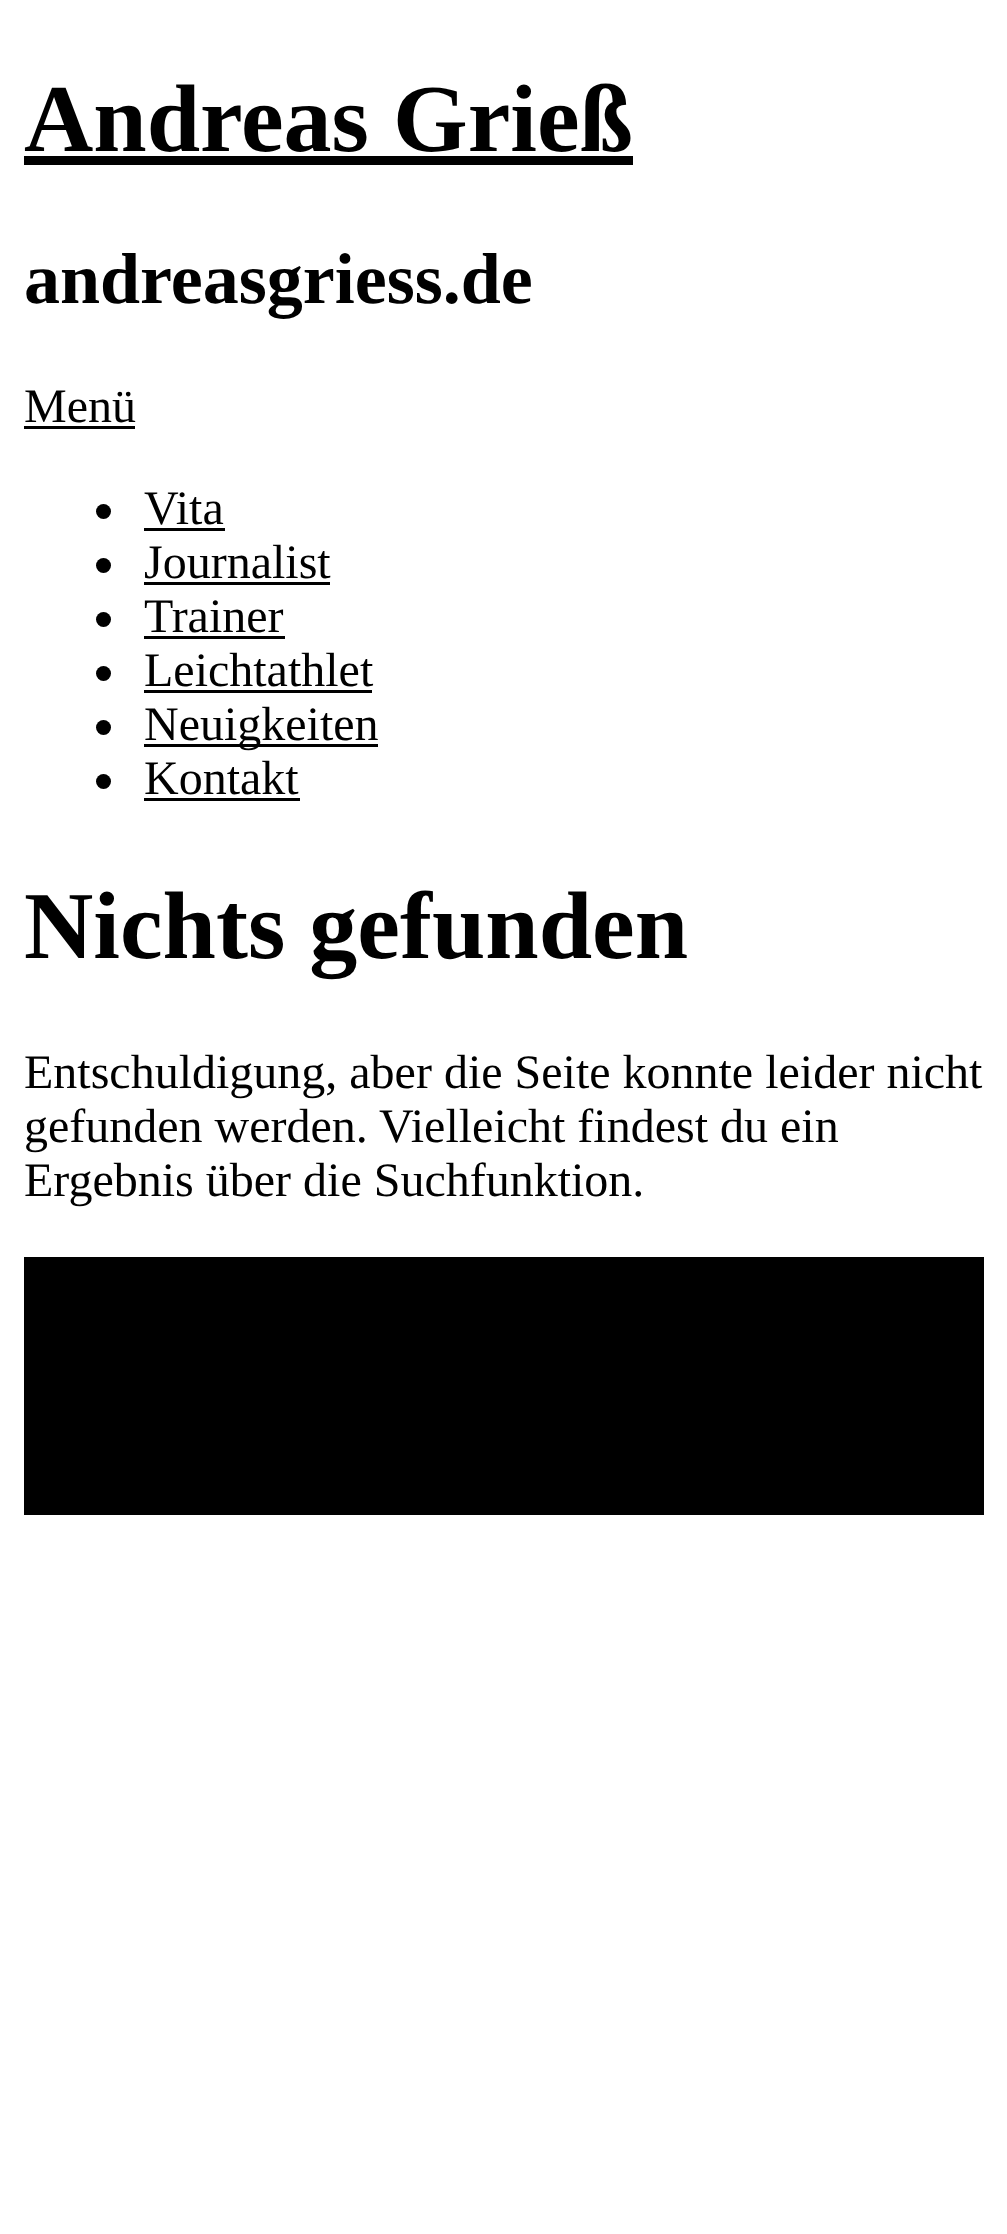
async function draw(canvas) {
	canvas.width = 1007;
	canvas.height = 2234;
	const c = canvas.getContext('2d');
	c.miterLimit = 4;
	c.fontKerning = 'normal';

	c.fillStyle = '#fff';
	c.fillRect(0, 0, 1007, 2234);
	c.font = 'bold 96px Liberation Serif';
	c.fillStyle = '#000';
	c.fillText('Andreas Grieß', 24, 151);
	c.fillRect(24, 156, 609, 9);
	c.font = 'bold 72px Liberation Serif';
	c.fillText('andreasgriess.de', 24, 303);
	c.font = '48px Liberation Serif';
	c.fillText('Menü', 24, 422);
	c.fillRect(24, 426, 111, 3);
	c.beginPath();
	c.arc(103.5, 511.5, 7.5, 0, 2 * Math.PI);
	c.fill();
	c.fillText('Vita', 144, 524);
	c.fillRect(144, 528, 81, 3);
	c.beginPath();
	c.arc(103.5, 565.5, 7.5, 0, 2 * Math.PI);
	c.fill();
	c.fillText('Journalist', 144, 578);
	c.fillRect(144, 582, 186, 3);
	c.beginPath();
	c.arc(103.5, 619.5, 7.5, 0, 2 * Math.PI);
	c.fill();
	c.fillText('Trainer', 144, 632);
	c.fillRect(144, 636, 141, 3);
	c.beginPath();
	c.arc(103.5, 673.5, 7.5, 0, 2 * Math.PI);
	c.fill();
	c.fillText('Leichtathlet', 144, 686);
	c.fillRect(144, 690, 228, 3);
	c.beginPath();
	c.arc(103.5, 727.5, 7.5, 0, 2 * Math.PI);
	c.fill();
	c.fillRect(144, 744, 234, 3);
	c.fillText('Neuigkeiten', 144, 740);
	c.beginPath();
	c.arc(103.5, 781.5, 7.5, 0, 2 * Math.PI);
	c.fill();
	c.fillText('Kontakt', 144, 794);
	c.fillRect(144, 798, 156, 3);
	c.font = 'bold 96px Liberation Serif';
	c.fillText('Nichts gefunden', 24, 958);
	c.font = '48px Liberation Serif';
	for (const [text, x, y] of [
		['Entschuldigung, aber die Seite konnte leider nicht', 24, 1088],
		['gefunden werden. Vielleicht findest du ein', 24, 1142],
		['Ergebnis über die Suchfunktion.', 24, 1196],
	]) {
		c.fillText(text, x, y);
	}
	c.fillRect(24, 1257, 960, 258);
}

draw(document.querySelector('canvas'));
